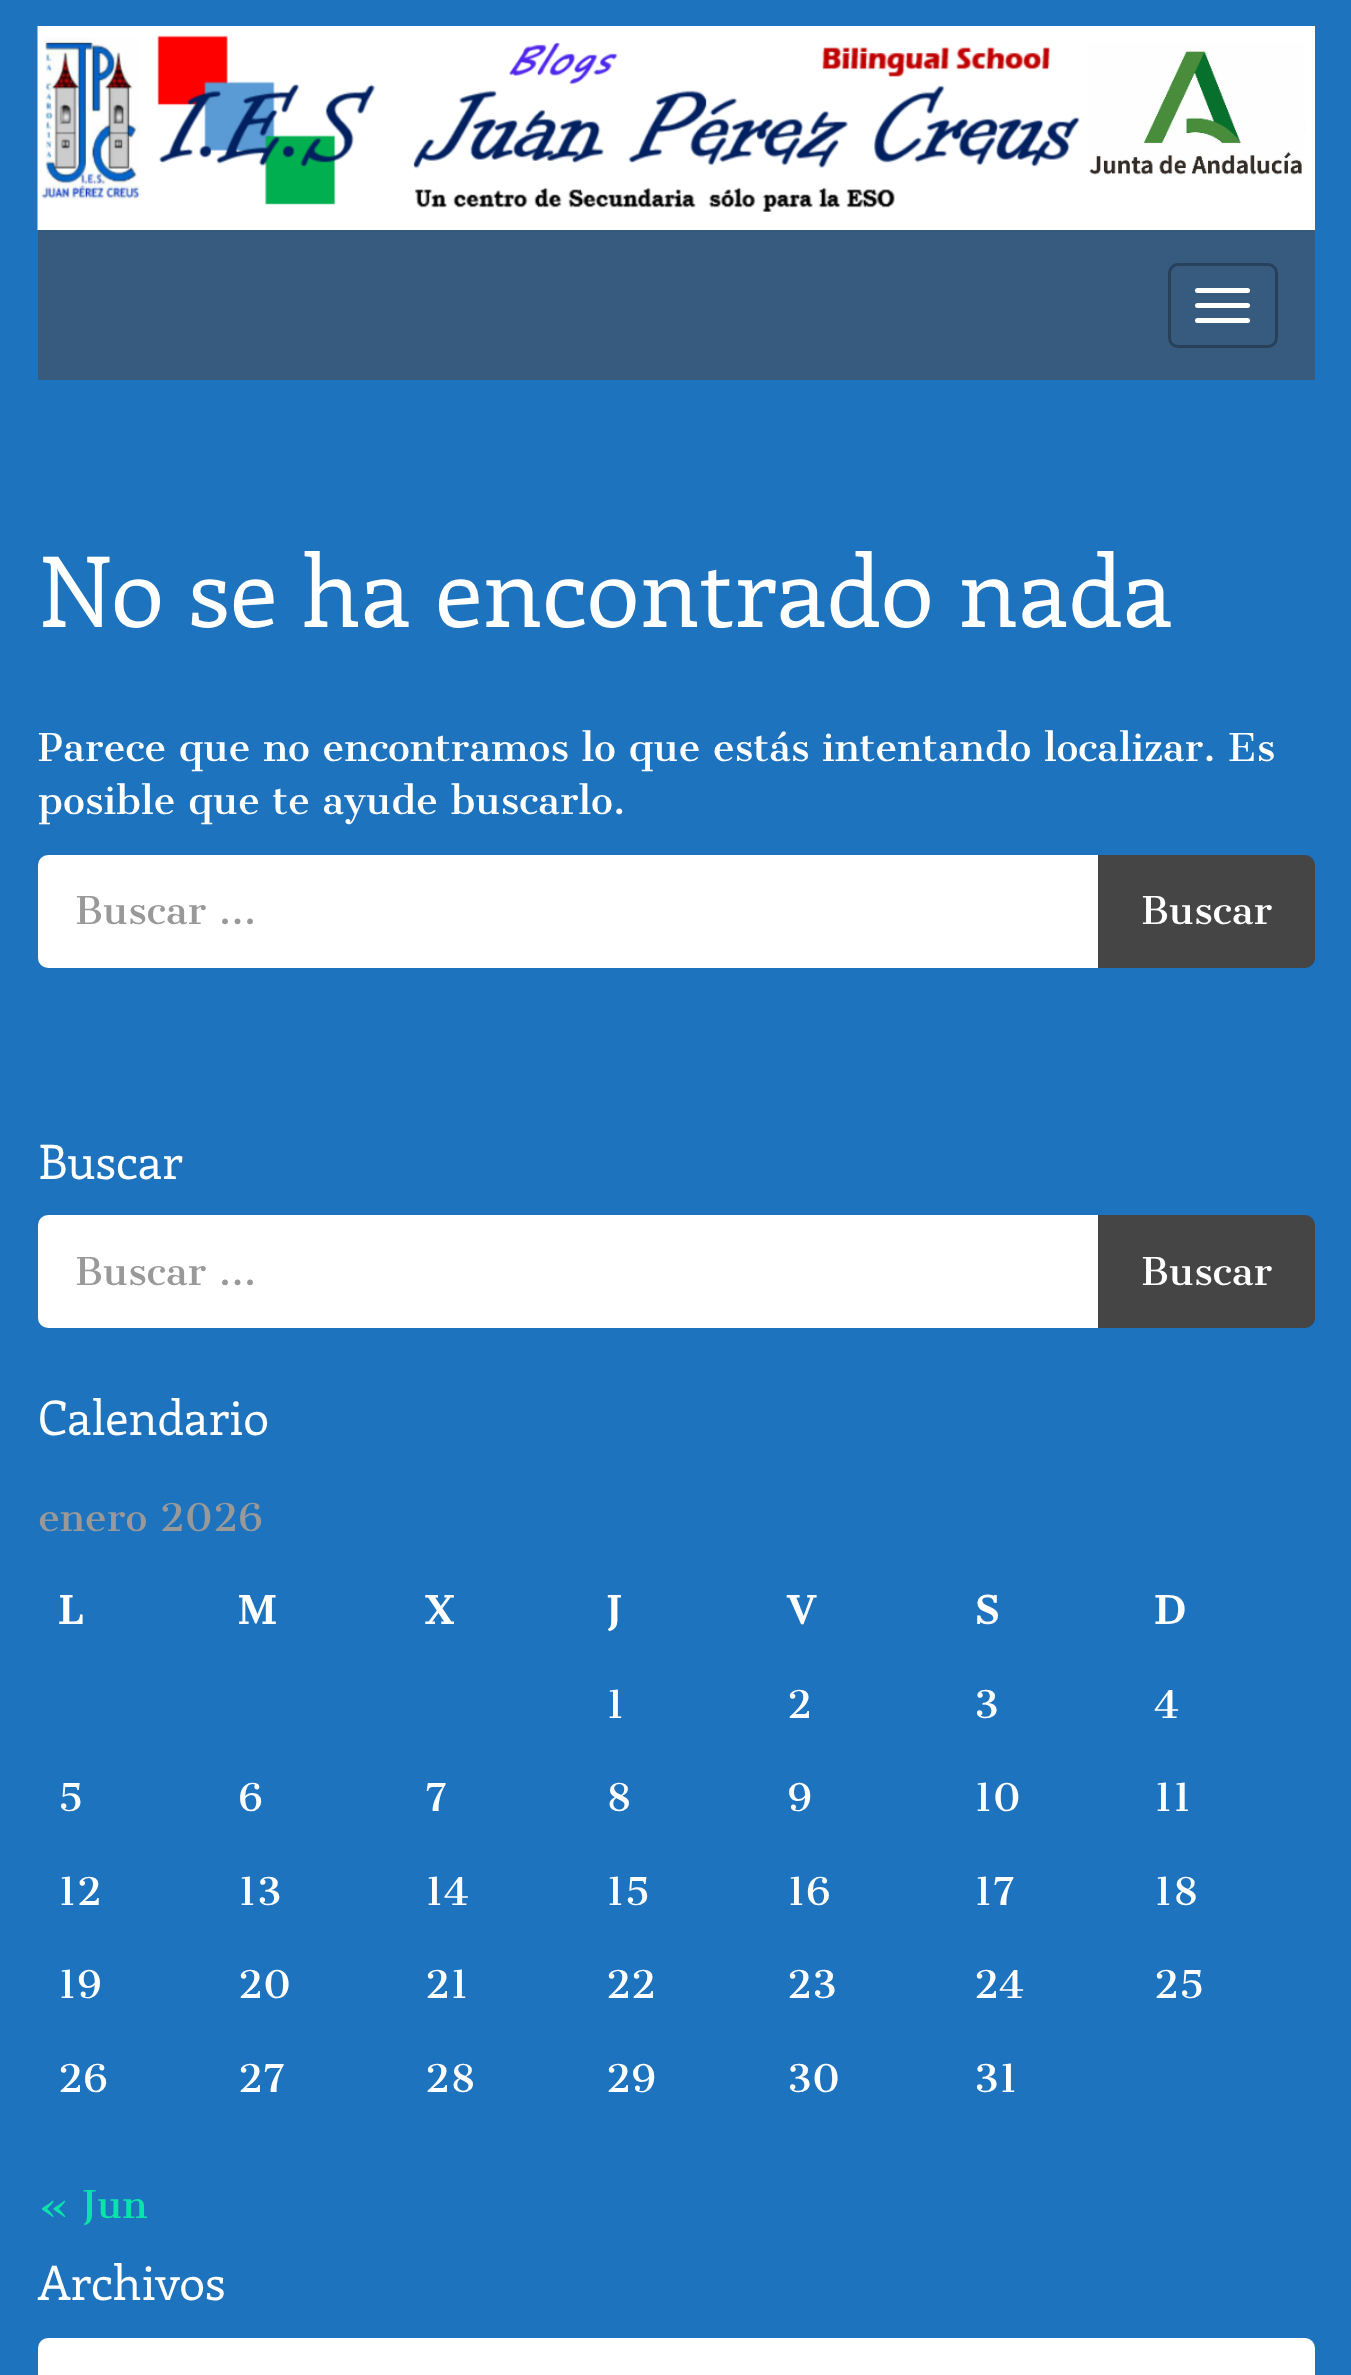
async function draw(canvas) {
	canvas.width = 1351;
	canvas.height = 2375;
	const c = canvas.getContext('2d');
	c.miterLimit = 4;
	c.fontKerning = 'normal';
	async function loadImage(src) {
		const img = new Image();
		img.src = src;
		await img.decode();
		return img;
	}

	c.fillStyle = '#1e73be';
	c.fillRect(0, 0, 1351, 2375);
	c.drawImage(await loadImage('img1.png'), 37, 26, 1278, 204);
	c.fillStyle = '#375a7f';
	c.fillRect(38, 230, 1277, 150);
	c.beginPath();
	c.roundRect(1169.5, 264.5, 107, 82, 8.5);
	c.strokeStyle = '#28415b';
	c.lineWidth = 3;
	c.stroke();
	c.fillStyle = '#fff';
	c.beginPath();
	c.roundRect(1195, 288, 55, 5, 2.5);
	c.fill();
	c.beginPath();
	c.roundRect(1195, 303, 55, 5, 2.5);
	c.fill();
	c.beginPath();
	c.roundRect(1195, 318, 55, 5, 2.5);
	c.fill();
	c.font = '97.5px Enriqueta';
	c.fillText('No se ha encontrado nada', 38, 627);
	c.font = '37.5px Cantata One';
	c.fillText('Parece que no encontramos lo que estás intentando localizar. Es', 38, 761);
	c.fillText('posible que te ayude buscarlo.', 38, 814);
	c.beginPath();
	c.roundRect(38, 855, 1062, 113, [10, 0, 0, 10]);
	c.fill();
	c.fillStyle = '#999';
	c.fillText('Buscar …', 75, 924);
	c.fillStyle = '#464545';
	c.beginPath();
	c.roundRect(1100.5, 857.5, 212, 108, [0, 7.5, 7.5, 0]);
	c.fill();
	c.strokeStyle = '#464545';
	c.lineWidth = 5;
	c.stroke();
	c.fillStyle = '#fff';
	c.fillText('Buscar', 1141, 924);
	c.font = '47.5px Enriqueta';
	c.fillText('Buscar', 38, 1179);
	c.beginPath();
	c.roundRect(38, 1215, 1062, 113, [10, 0, 0, 10]);
	c.fill();
	c.font = '37.5px Cantata One';
	c.fillStyle = '#999';
	c.fillText('Buscar …', 75, 1285);
	c.fillStyle = '#464545';
	c.beginPath();
	c.roundRect(1100.5, 1217.5, 212, 108, [0, 7.5, 7.5, 0]);
	c.fill();
	c.stroke();
	c.fillStyle = '#fff';
	c.fillText('Buscar', 1141, 1285);
	c.font = '47.5px Enriqueta';
	c.fillText('Calendario', 38, 1435);
	c.font = '37.5px Cantata One';
	c.fillStyle = '#999';
	c.fillText('enero 2026', 38, 1531);
	c.font = 'bold 37.5px Cantata One';
	c.fillStyle = '#fff';
	for (const [text, x, y] of [
		['L', 58, 1624],
		['M', 238, 1624],
		['X', 425, 1624],
		['J', 606, 1624],
		['V', 787, 1624],
		['S', 974, 1624],
		['D', 1154, 1624],
	]) {
		c.fillText(text, x, y);
	}
	c.font = '37.5px Cantata One';
	for (const [text, x, y] of [
		['1', 606, 1718],
		['2', 787, 1718],
		['3', 974, 1718],
		['4', 1154, 1718],
		['5', 58, 1811],
		['6', 238, 1811],
		['7', 425, 1811],
		['8', 606, 1811],
		['9', 787, 1811],
		['10', 974, 1811],
		['11', 1154, 1811],
		['12', 58, 1905],
		['13', 238, 1905],
		['14', 425, 1905],
		['15', 606, 1905],
		['16', 787, 1905],
		['17', 974, 1905],
		['18', 1154, 1905],
		['19', 58, 1998],
		['20', 238, 1998],
		['21', 425, 1998],
		['22', 606, 1998],
		['23', 787, 1998],
		['24', 974, 1998],
		['25', 1154, 1998],
		['26', 58, 2092],
		['27', 238, 2092],
		['28', 425, 2092],
		['29', 606, 2092],
		['30', 787, 2092],
		['31', 974, 2092],
	]) {
		c.fillText(text, x, y);
	}
	c.fillStyle = '#0ce3ac';
	c.fillText('« Jun', 38, 2218);
	c.font = '47.5px Enriqueta';
	c.fillStyle = '#fff';
	c.fillText('Archivos', 38, 2300);
	c.beginPath();
	c.roundRect(38, 2338, 1277, 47, 10);
	c.fill();
}

draw(document.querySelector('canvas'));
